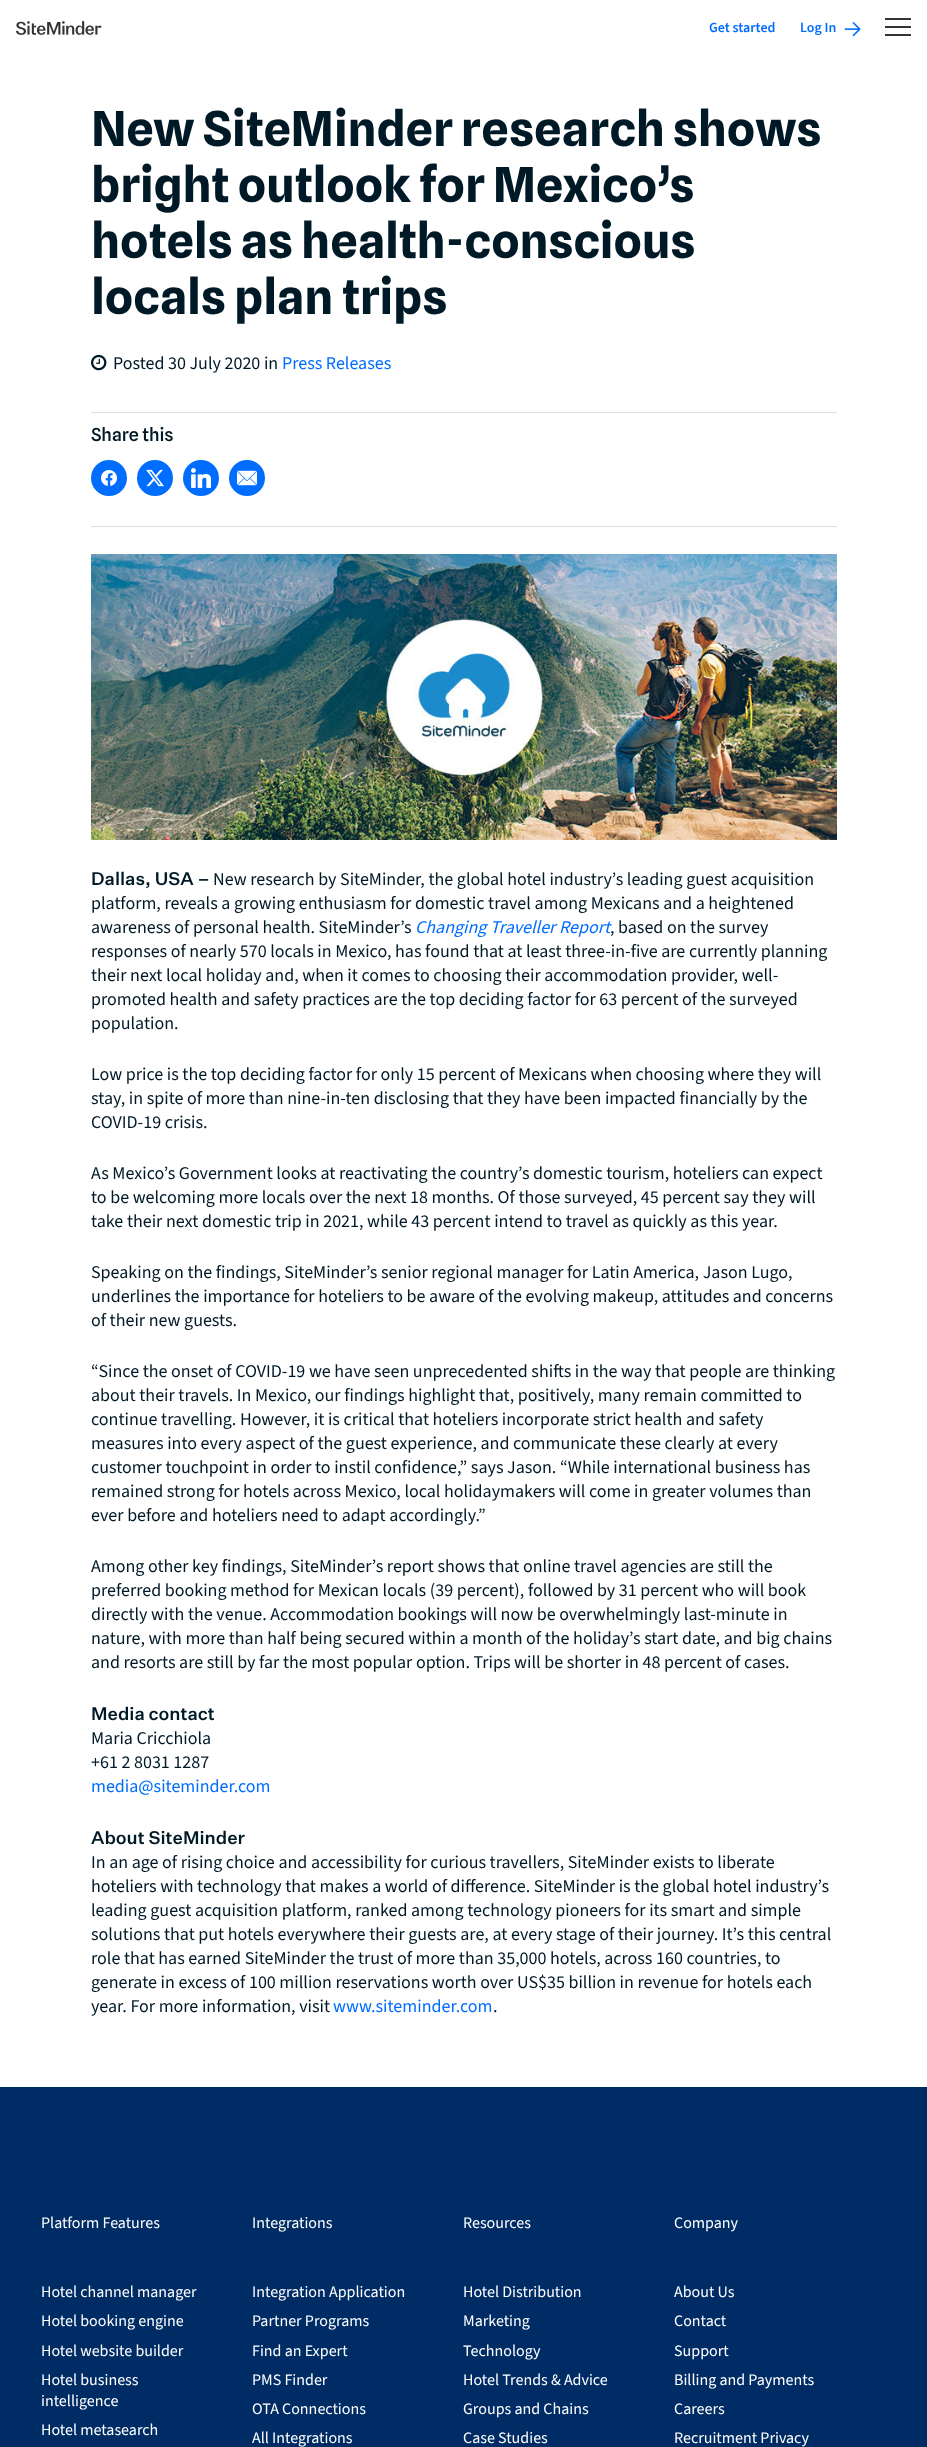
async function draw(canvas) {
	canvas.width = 927;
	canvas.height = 2447;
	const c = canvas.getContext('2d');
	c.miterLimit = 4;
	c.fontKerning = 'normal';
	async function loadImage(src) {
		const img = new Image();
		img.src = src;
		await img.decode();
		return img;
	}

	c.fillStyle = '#fff';
	c.fillRect(0, 0, 927, 2447);
	c.drawImage(await loadImage('img1.png'), 16, 21, 86, 14);
	c.font = '200 14px "Source Sans 3"';
	c.fillStyle = '#006dff';
	c.fillText('Get started', 709, 32);
	c.fillText('Log In', 800, 32);
	c.drawImage(await loadImage('img2.png'), 844, 22, 17, 15);
	for (const [x, y, w, h, color] of [
		[885, 18, 26, 2, '#333'],
		[885, 26, 26, 2, '#333'],
		[885, 34, 26, 2, '#333'],
	]) {
		c.fillStyle = color;
		c.fillRect(x, y, w, h);
	}
	c.font = 'bold 48px Spline Sans';
	c.fillStyle = '#001927';
	for (const [text, x, y] of [
		['New SiteMinder research shows', 91, 146],
		['bright outlook for Mexico’s', 91, 202],
		['hotels as health-conscious', 91, 258],
		['locals plan trips', 91, 314],
	]) {
		c.fillText(text, x, y);
	}
	c.drawImage(await loadImage('img3.png'), 91, 354, 16, 17);
	c.font = '18px "Source Sans 3"';
	c.fillText('Posted 30 July 2020 in', 113, 369);
	c.fillStyle = '#006dff';
	c.fillText('Press Releases', 282, 369);
	c.fillStyle = '#ddd';
	c.fillRect(91, 412, 746, 1);
	c.font = '500 18px Spline Sans';
	c.fillStyle = '#001927';
	c.fillText('Share this', 91, 441);
	c.fillStyle = '#006dff';
	c.beginPath();
	c.arc(109, 478, 18, 0, 2 * Math.PI);
	c.fill();
	c.drawImage(await loadImage('img4.png'), 101, 470, 16, 16);
	c.beginPath();
	c.arc(155, 478, 18, 0, 2 * Math.PI);
	c.fill();
	c.drawImage(await loadImage('img5.png'), 146, 469, 18, 18);
	c.beginPath();
	c.arc(201, 478, 18, 0, 2 * Math.PI);
	c.fill();
	c.drawImage(await loadImage('img6.png'), 191, 468, 20, 20);
	c.beginPath();
	c.arc(247, 478, 18, 0, 2 * Math.PI);
	c.fill();
	c.drawImage(await loadImage('img7.png'), 237, 470, 20, 16);
	c.fillStyle = '#ddd';
	c.fillRect(91, 526, 746, 1);
	c.drawImage(await loadImage('img8.png'), 91, 554, 746, 286);
	c.font = '500 18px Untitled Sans';
	c.fillStyle = '#001927';
	c.fillText('Dallas, USA –', 91, 885);
	c.font = '18px "Source Sans 3"';
	for (const [text, x, y] of [
		['New research by SiteMinder, the global hotel industry’s leading guest acquisition', 213, 885],
		['platform, reveals a growing enthusiasm for domestic travel among Mexicans and a heightened', 91, 909],
		['awareness of personal health. SiteMinder’s', 91, 933],
	]) {
		c.fillText(text, x, y);
	}
	c.font = 'italic 18px "Source Sans 3"';
	c.fillStyle = '#006dff';
	c.fillText('Changing Traveller Report', 415, 933);
	c.font = '18px "Source Sans 3"';
	c.fillStyle = '#001927';
	for (const [text, x, y] of [
		[', based on the survey', 610, 933],
		['responses of nearly 570 locals in Mexico, has found that at least three-in-five are currently planning', 91, 957],
		['their next local holiday and, when it comes to choosing their accommodation provider, well-', 91, 981],
		['promoted health and safety practices are the top deciding factor for 63 percent of the surveyed', 91, 1005],
		['population.', 91, 1029],
		['Low price is the top deciding factor for only 15 percent of Mexicans when choosing where they will', 91, 1080],
		['stay, in spite of more than nine-in-ten disclosing that they have been impacted financially by the', 91, 1104],
		['COVID-19 crisis.', 91, 1128],
		['As Mexico’s Government looks at reactivating the country’s domestic tourism, hoteliers can expect', 91, 1179],
		['to be welcoming more locals over the next 18 months. Of those surveyed, 45 percent say they will', 91, 1203],
		['take their next domestic trip in 2021, while 43 percent intend to travel as quickly as this year.', 91, 1227],
		['Speaking on the findings, SiteMinder’s senior regional manager for Latin America, Jason Lugo,', 91, 1278],
		['underlines the importance for hoteliers to be aware of the evolving makeup, attitudes and concerns', 91, 1302],
		['of their new guests.', 91, 1326],
		['“Since the onset of COVID-19 we have seen unprecedented shifts in the way that people are thinking', 91, 1377],
		['about their travels. In Mexico, our findings highlight that, positively, many remain committed to', 91, 1401],
		['continue travelling. However, it is critical that hoteliers incorporate strict health and safety', 91, 1425],
		['measures into every aspect of the guest experience, and communicate these clearly at every', 91, 1449],
		['customer touchpoint in order to instil confidence,” says Jason. “While international business has', 91, 1473],
		['remained strong for hotels across Mexico, local holidaymakers will come in greater volumes than', 91, 1497],
		['ever before and hoteliers need to adapt accordingly.”', 91, 1521],
		['Among other key findings, SiteMinder’s report shows that online travel agencies are still the', 91, 1572],
		['preferred booking method for Mexican locals (39 percent), followed by 31 percent who will book', 91, 1596],
		['directly with the venue. Accommodation bookings will now be overwhelmingly last-minute in', 91, 1620],
		['nature, with more than half being secured within a month of the holiday’s start date, and big chains', 91, 1644],
		['and resorts are still by far the most popular option. Trips will be shorter in 48 percent of cases.', 91, 1668],
	]) {
		c.fillText(text, x, y);
	}
	c.font = '500 18px Untitled Sans';
	c.fillText('Media contact', 91, 1720);
	c.font = '18px "Source Sans 3"';
	c.fillText('Maria Cricchiola', 91, 1744);
	c.fillText('+61 2 8031 1287', 91, 1768);
	c.fillStyle = '#006dff';
	c.fillText('media@siteminder.com', 91, 1792);
	c.font = '500 18px Untitled Sans';
	c.fillStyle = '#001927';
	c.fillText('About SiteMinder', 91, 1844);
	c.font = '18px "Source Sans 3"';
	for (const [text, x, y] of [
		['In an age of rising choice and accessibility for curious travellers, SiteMinder exists to liberate', 91, 1868],
		['hoteliers with technology that makes a world of difference. SiteMinder is the global hotel industry’s', 91, 1892],
		['leading guest acquisition platform, ranked among technology pioneers for its smart and simple', 91, 1916],
		['solutions that put hotels everywhere their guests are, at every stage of their journey. It’s this central', 91, 1940],
		['role that has earned SiteMinder the trust of more than 35,000 hotels, across 160 countries, to', 91, 1964],
		['generate in excess of 100 million reservations worth over US$35 billion in revenue for hotels each', 91, 1988],
		['year. For more information, visit', 91, 2012],
	]) {
		c.fillText(text, x, y);
	}
	c.fillStyle = '#006dff';
	c.fillText('www.siteminder.com', 333, 2012);
	c.fillStyle = '#001927';
	c.fillText('.', 493, 2012);
	c.fillStyle = '#002c66';
	c.fillRect(0, 2087, 927, 360);
	c.font = '16px "Source Sans 3"';
	c.fillStyle = '#fff';
	for (const [text, x, y] of [
		['Platform Features', 41, 2228],
		['Hotel channel manager', 41, 2297],
		['Hotel booking engine', 41, 2326],
		['Hotel website builder', 41, 2356],
		['Hotel business', 41, 2385],
		['intelligence', 41, 2406],
		['Hotel metasearch', 41, 2435],
		['Integrations', 252, 2228],
		['Integration Application', 252, 2297],
		['Partner Programs', 252, 2326],
		['Find an Expert', 252, 2356],
		['PMS Finder', 252, 2385],
		['OTA Connections', 252, 2414],
		['All Integrations', 252, 2443],
		['Resources', 463, 2228],
		['Hotel Distribution', 463, 2297],
		['Marketing', 463, 2326],
		['Technology', 463, 2356],
		['Hotel Trends & Advice', 463, 2385],
		['Groups and Chains', 463, 2414],
		['Case Studies', 463, 2443],
		['Company', 674, 2228],
		['About Us', 674, 2297],
		['Contact', 674, 2326],
		['Support', 674, 2356],
		['Billing and Payments', 674, 2385],
		['Careers', 674, 2414],
		['Recruitment Privacy', 674, 2443],
	]) {
		c.fillText(text, x, y);
	}
}

draw(document.querySelector('canvas'));
